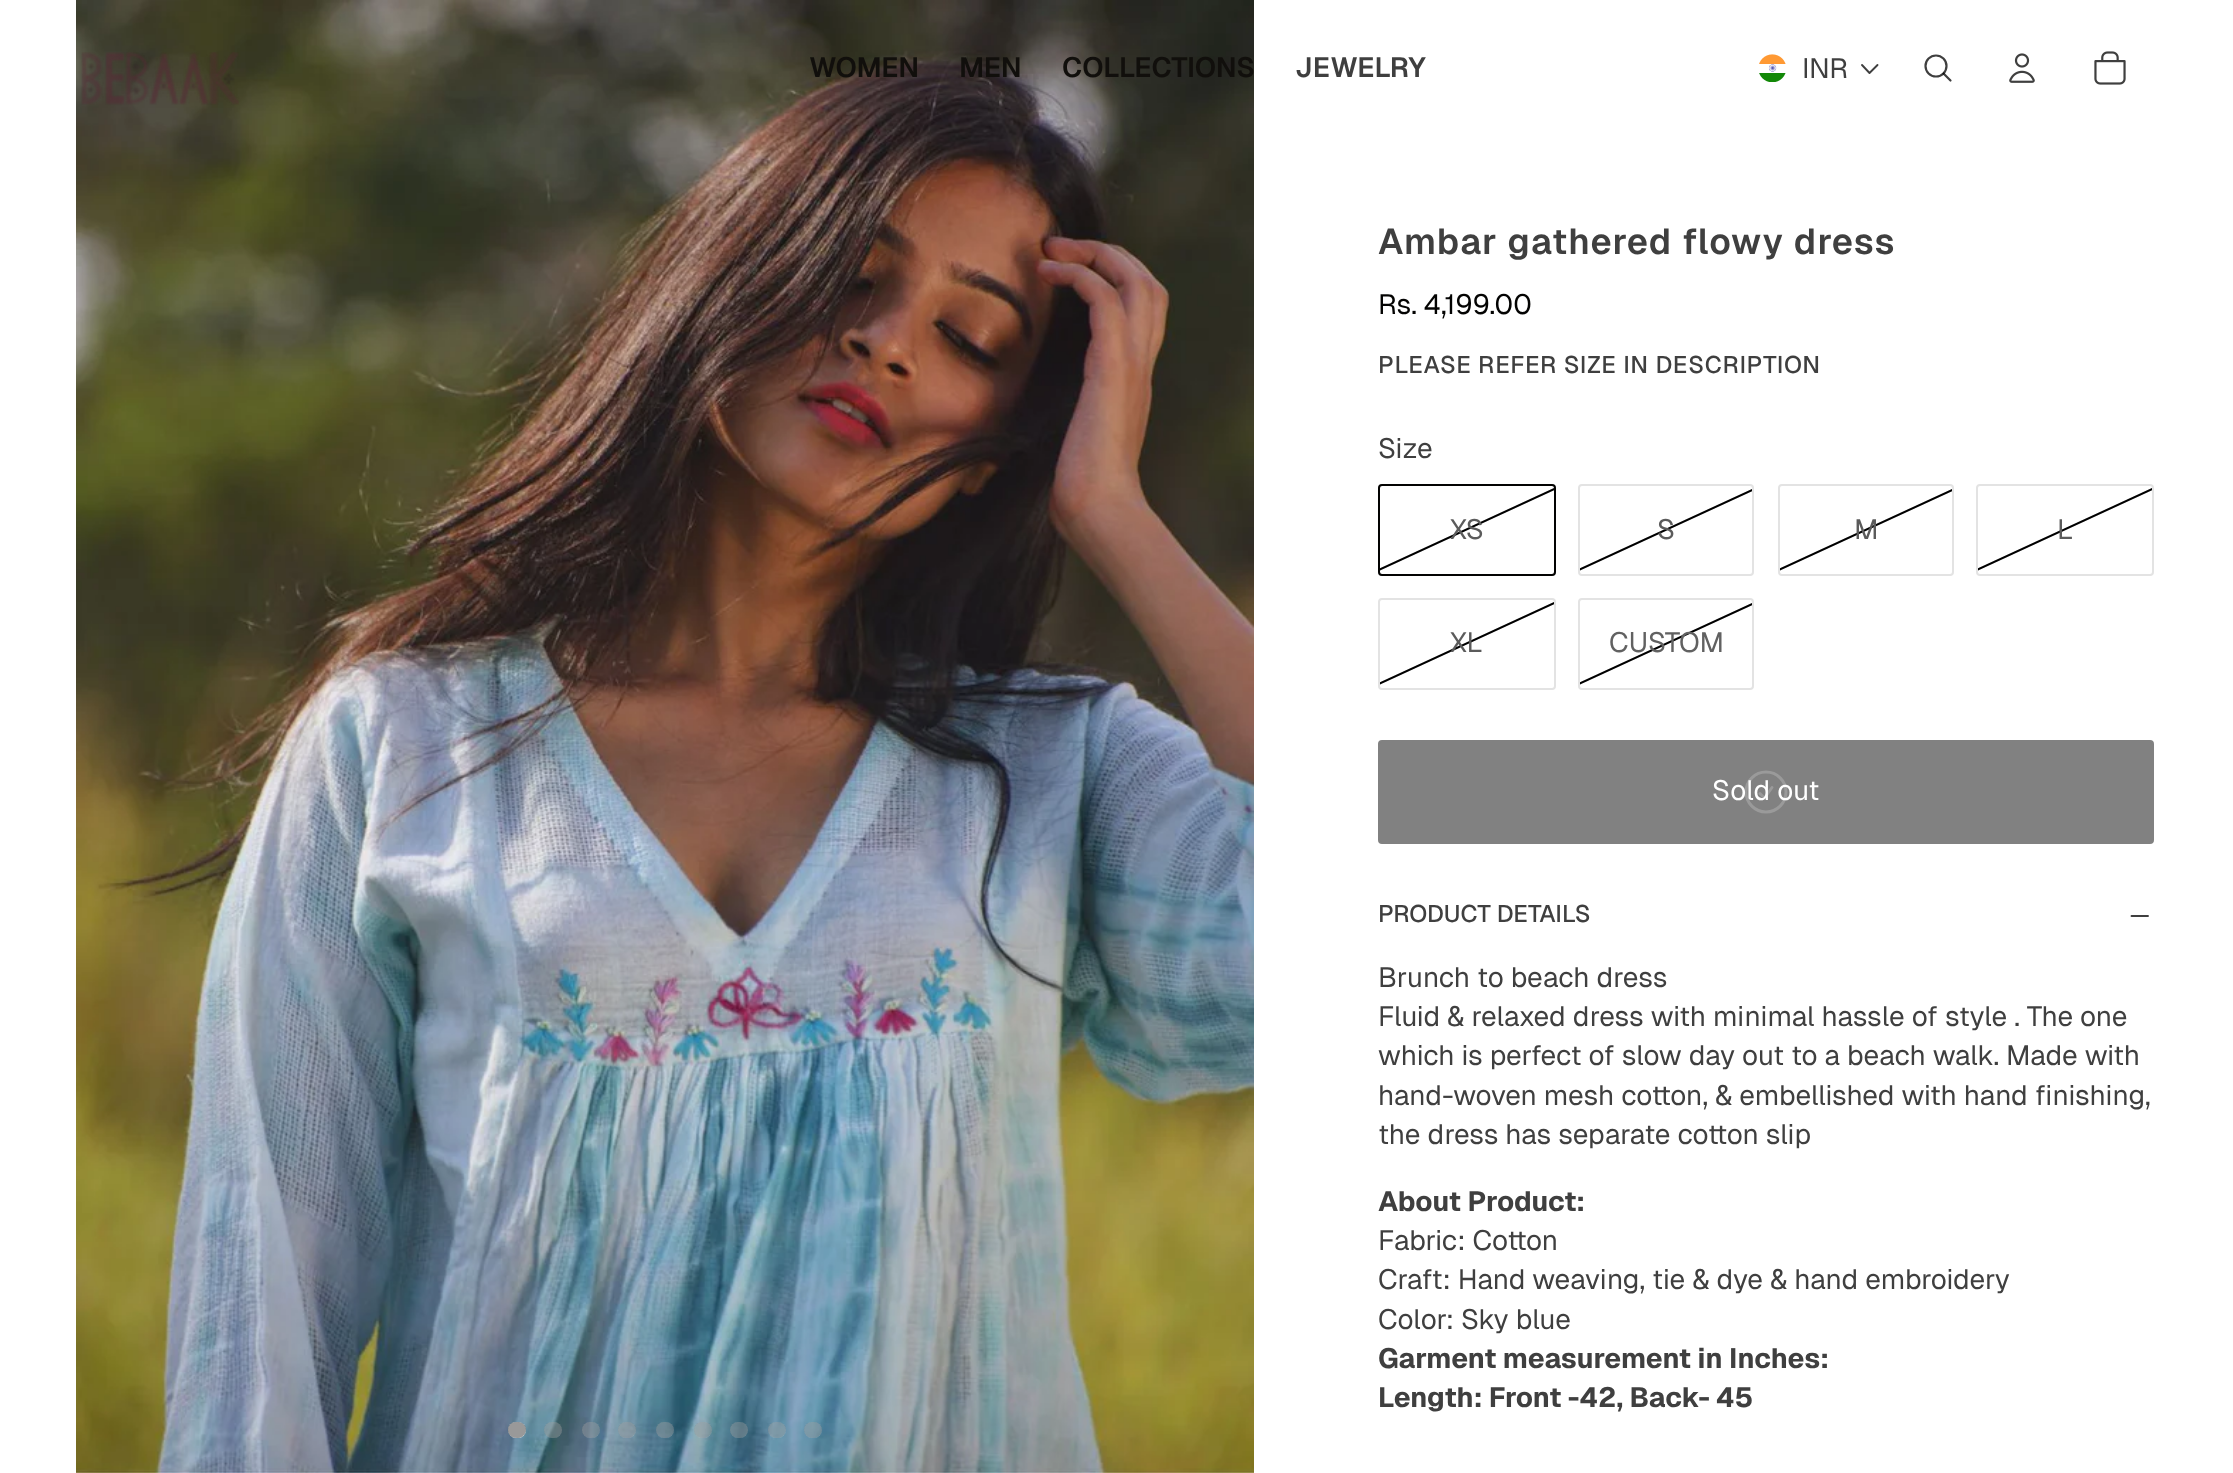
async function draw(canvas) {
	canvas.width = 2233;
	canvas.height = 1473;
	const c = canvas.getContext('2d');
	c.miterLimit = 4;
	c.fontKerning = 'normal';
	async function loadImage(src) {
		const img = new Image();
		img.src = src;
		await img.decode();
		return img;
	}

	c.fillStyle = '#fff';
	c.fillRect(0, 0, 2233, 1473);
	c.drawImage(await loadImage('img5.png'), 76, 0, 1178, 1473);
	c.drawImage(await loadImage('img1.png'), 81, 52, 158, 53);
	c.font = '600 28px Geist';
	c.fillStyle = '#110f0c';
	for (const [text, x, y] of [
		['WOMEN', 809, 77],
		['MEN', 959, 77],
		['COLLECTIONS', 1062, 77],
	]) {
		c.fillText(text, x, y);
	}
	c.fillStyle = '#3f3f3f';
	c.fillText('JEWELRY', 1295, 77);
	c.drawImage(await loadImage('img2.png'), 1759, 54, 27, 28);
	c.font = '28px Geist';
	c.fillText('INR', 1802, 78);
	c.beginPath();
	c.moveTo(1877.5, 65);
	c.lineTo(1869.5, 73);
	c.lineTo(1862, 65);
	c.strokeStyle = '#3f3f3f';
	c.lineWidth = 1.9;
	c.lineCap = 'round';
	c.lineJoin = 'round';
	c.stroke();
	c.beginPath();
	c.arc(1936, 66, 10.5, 0, 2 * Math.PI);
	c.lineWidth = 2.2;
	c.stroke();
	c.beginPath();
	c.moveTo(1943.5, 73.5);
	c.lineTo(1950.5, 80.5);
	c.strokeStyle = '#030302c2';
	c.stroke();
	c.drawImage(await loadImage('img3.png'), 2009, 53, 26, 30);
	c.drawImage(await loadImage('img4.png'), 2094, 51, 32, 34);
	c.fillStyle = '#fff';
	c.beginPath();
	c.roundRect(508, 1422, 18, 16, 8);
	c.fill();
	c.fillStyle = '#00000066';
	c.beginPath();
	c.moveTo(516, 1422);
	c.bezierCurveTo(517.5, 1422, 519.5, 1422, 521, 1422.5);
	c.bezierCurveTo(529.5, 1426, 526.5, 1437.5, 518, 1438);
	c.bezierCurveTo(505, 1439, 505, 1422, 516, 1422);
	c.closePath();
	c.fill();
	c.fillStyle = '#ffffff4d';
	c.beginPath();
	c.roundRect(544, 1422, 18, 16, 8);
	c.fill();
	c.fillStyle = '#00000026';
	c.beginPath();
	c.moveTo(552, 1422);
	c.bezierCurveTo(553.5, 1422, 555.5, 1422, 557, 1422.5);
	c.bezierCurveTo(565.5, 1426, 562.5, 1437.5, 554, 1438);
	c.bezierCurveTo(541, 1439, 541, 1422, 552, 1422);
	c.closePath();
	c.fill();
	c.fillStyle = '#ffffff4d';
	c.beginPath();
	c.roundRect(582, 1422, 18, 16, 8);
	c.fill();
	c.fillStyle = '#00000026';
	c.beginPath();
	c.moveTo(590, 1422);
	c.bezierCurveTo(591.5, 1422, 593.5, 1422, 595, 1422.5);
	c.bezierCurveTo(603.5, 1426, 600.5, 1437.5, 592, 1438);
	c.bezierCurveTo(579, 1439, 579, 1422, 590, 1422);
	c.closePath();
	c.fill();
	c.fillStyle = '#ffffff4d';
	c.beginPath();
	c.roundRect(618, 1422, 18, 16, 8);
	c.fill();
	c.fillStyle = '#00000026';
	c.beginPath();
	c.moveTo(626, 1422);
	c.bezierCurveTo(627.5, 1422, 629.5, 1422, 631, 1422.5);
	c.bezierCurveTo(639.5, 1426, 636.5, 1437.5, 628, 1438);
	c.bezierCurveTo(615, 1439, 615, 1422, 626, 1422);
	c.closePath();
	c.fill();
	c.fillStyle = '#ffffff4d';
	c.beginPath();
	c.roundRect(656, 1422, 18, 16, 8);
	c.fill();
	c.fillStyle = '#00000026';
	c.beginPath();
	c.moveTo(664, 1422);
	c.bezierCurveTo(665.5, 1422, 667.5, 1422, 669, 1422.5);
	c.bezierCurveTo(677.5, 1426, 674.5, 1437.5, 666, 1438);
	c.bezierCurveTo(653, 1439, 653, 1422, 664, 1422);
	c.closePath();
	c.fill();
	c.fillStyle = '#ffffff4d';
	c.beginPath();
	c.roundRect(694, 1422, 18, 16, 8);
	c.fill();
	c.fillStyle = '#00000026';
	c.beginPath();
	c.moveTo(702, 1422);
	c.bezierCurveTo(703.5, 1422, 705.5, 1422, 707, 1422.5);
	c.bezierCurveTo(715.5, 1426, 712.5, 1437.5, 704, 1438);
	c.bezierCurveTo(691, 1439, 691, 1422, 702, 1422);
	c.closePath();
	c.fill();
	c.fillStyle = '#ffffff4d';
	c.beginPath();
	c.roundRect(730, 1422, 18, 16, 8);
	c.fill();
	c.fillStyle = '#00000026';
	c.beginPath();
	c.moveTo(738, 1422);
	c.bezierCurveTo(739.5, 1422, 741.5, 1422, 743, 1422.5);
	c.bezierCurveTo(751.5, 1426, 748.5, 1437.5, 740, 1438);
	c.bezierCurveTo(727, 1439, 727, 1422, 738, 1422);
	c.closePath();
	c.fill();
	c.fillStyle = '#ffffff4d';
	c.beginPath();
	c.roundRect(768, 1422, 18, 16, 8);
	c.fill();
	c.fillStyle = '#00000026';
	c.beginPath();
	c.moveTo(776, 1422);
	c.bezierCurveTo(777.5, 1422, 779.5, 1422, 781, 1422.5);
	c.bezierCurveTo(789.5, 1426, 786.5, 1437.5, 778, 1438);
	c.bezierCurveTo(765, 1439, 765, 1422, 776, 1422);
	c.closePath();
	c.fill();
	c.fillStyle = '#ffffff4d';
	c.beginPath();
	c.roundRect(804, 1422, 18, 16, 8);
	c.fill();
	c.fillStyle = '#00000026';
	c.beginPath();
	c.moveTo(812, 1422);
	c.bezierCurveTo(813.5, 1422, 815.5, 1422, 817, 1422.5);
	c.bezierCurveTo(825.5, 1426, 822.5, 1437.5, 814, 1438);
	c.bezierCurveTo(801, 1439, 801, 1422, 812, 1422);
	c.closePath();
	c.fill();
	c.letterSpacing = '1.1px';
	c.font = '600 36px Geist';
	c.fillStyle = '#3f3f3f';
	c.fillText('Ambar gathered flowy dress', 1378, 254);
	c.letterSpacing = '0px';
	c.font = '28px Geist';
	c.fillStyle = '#030302';
	c.fillText('Rs. 4,199.00', 1378, 314);
	c.letterSpacing = '0.75px';
	c.font = '500 24px Geist';
	c.fillStyle = '#3f3f3f';
	c.fillText('PLEASE REFER SIZE IN DESCRIPTION', 1378, 373);
	c.letterSpacing = '0px';
	c.font = '28px Geist';
	c.fillText('Size', 1378, 458);
	c.save();
	c.beginPath();
	c.rect(1380, 486, 174, 88);
	c.clip();
	c.beginPath();
	c.moveTo(1561, 486);
	c.lineTo(1372, 573);
	c.strokeStyle = '#e3e3e3';
	c.lineWidth = 2;
	c.lineCap = 'butt';
	c.lineJoin = 'miter';
	c.stroke();
	c.beginPath();
	c.moveTo(1561, 486);
	c.lineTo(1372, 573);
	c.strokeStyle = '#000';
	c.stroke();
	c.restore();
	c.beginPath();
	c.roundRect(1379, 485, 176, 90, 3);
	c.strokeStyle = '#e3e3e3';
	c.lineWidth = 2;
	c.lineJoin = 'miter';
	c.stroke();
	c.beginPath();
	c.roundRect(1379, 485, 176, 90, 3);
	c.strokeStyle = '#030302';
	c.stroke();
	c.fillStyle = '#5b5b5b';
	c.fillText('XS', 1450, 539);
	c.save();
	c.beginPath();
	c.rect(1580, 486, 172, 88);
	c.clip();
	c.beginPath();
	c.moveTo(1761, 486);
	c.lineTo(1572, 573);
	c.strokeStyle = '#e3e3e3';
	c.lineCap = 'butt';
	c.stroke();
	c.beginPath();
	c.moveTo(1761, 486);
	c.lineTo(1572, 573);
	c.strokeStyle = '#000';
	c.stroke();
	c.restore();
	c.beginPath();
	c.roundRect(1579, 485, 174, 90, 3);
	c.strokeStyle = '#e3e3e3';
	c.stroke();
	c.fillText('S', 1657, 539);
	c.save();
	c.beginPath();
	c.rect(1780, 486, 172, 88);
	c.clip();
	c.beginPath();
	c.moveTo(1961, 486);
	c.lineTo(1772, 573);
	c.lineCap = 'butt';
	c.stroke();
	c.beginPath();
	c.moveTo(1961, 486);
	c.lineTo(1772, 573);
	c.strokeStyle = '#000';
	c.stroke();
	c.restore();
	c.beginPath();
	c.roundRect(1779, 485, 174, 90, 3);
	c.stroke();
	c.fillText('M', 1854, 539);
	c.save();
	c.beginPath();
	c.rect(1978, 486, 174, 88);
	c.clip();
	c.beginPath();
	c.moveTo(2159, 486);
	c.lineTo(1970, 573);
	c.lineCap = 'butt';
	c.stroke();
	c.beginPath();
	c.moveTo(2159, 486);
	c.lineTo(1970, 573);
	c.strokeStyle = '#000';
	c.stroke();
	c.restore();
	c.beginPath();
	c.roundRect(1977, 485, 176, 90, 3);
	c.stroke();
	c.fillText('L', 2057, 539);
	c.save();
	c.beginPath();
	c.rect(1380, 600, 174, 88);
	c.clip();
	c.beginPath();
	c.moveTo(1561, 600);
	c.lineTo(1372, 687);
	c.lineCap = 'butt';
	c.stroke();
	c.beginPath();
	c.moveTo(1561, 600);
	c.lineTo(1372, 687);
	c.strokeStyle = '#000';
	c.stroke();
	c.restore();
	c.beginPath();
	c.roundRect(1379, 599, 176, 90, 3);
	c.stroke();
	c.fillText('XL', 1450, 652);
	c.save();
	c.beginPath();
	c.rect(1580, 600, 172, 88);
	c.clip();
	c.beginPath();
	c.moveTo(1761, 600);
	c.lineTo(1572, 687);
	c.lineCap = 'butt';
	c.stroke();
	c.beginPath();
	c.moveTo(1761, 600);
	c.lineTo(1572, 687);
	c.strokeStyle = '#000';
	c.stroke();
	c.restore();
	c.beginPath();
	c.roundRect(1579, 599, 174, 90, 3);
	c.stroke();
	c.fillStyle = '#616161';
	c.fillText('CUSTOM', 1609, 652);
	c.fillStyle = '#818181';
	c.beginPath();
	c.roundRect(1379, 741, 774, 102, 3);
	c.fill();
	c.strokeStyle = '#818181';
	c.stroke();
	c.fillStyle = '#fff';
	c.fillText('Sold out', 1712, 800);
	c.beginPath();
	c.arc(1766, 792, 20, 0, 2 * Math.PI);
	c.strokeStyle = '#ffffff33';
	c.lineWidth = 3;
	c.stroke();
	c.beginPath();
	c.moveTo(1760, 793.5);
	c.lineTo(1764.5, 798);
	c.lineTo(1772, 787.5);
	c.lineJoin = 'round';
	c.stroke();
	c.font = '500 24px Geist';
	c.fillStyle = '#3f3f3f';
	c.fillText('PRODUCT DETAILS', 1378, 922);
	c.beginPath();
	c.moveTo(2148, 916);
	c.lineTo(2131.5, 916);
	c.strokeStyle = '#3f3f3f';
	c.lineWidth = 1.9;
	c.lineJoin = 'miter';
	c.stroke();
	c.font = '28px Geist';
	for (const [text, x, y] of [
		['Brunch to beach dress', 1378, 987],
		['Fluid & relaxed dress with minimal hassle of style . The one', 1378, 1026],
		['which is perfect of slow day out to a beach walk. Made with', 1378, 1065],
		['hand-woven mesh cotton, & embellished with hand finishing,', 1378, 1105],
		['the dress has separate cotton slip', 1378, 1144],
	]) {
		c.fillText(text, x, y);
	}
	c.font = 'bold 28px Geist';
	c.fillText('About Product:', 1378, 1211);
	c.font = '28px Geist';
	for (const [text, x, y] of [
		['Fabric: Cotton', 1378, 1250],
		['Craft: Hand weaving, tie & dye & hand embroidery', 1378, 1289],
		['Color: Sky blue', 1378, 1329],
	]) {
		c.fillText(text, x, y);
	}
	c.font = 'bold 28px Geist';
	c.fillText('Garment measurement in Inches:', 1378, 1368);
	c.fillText('Length: Front -42, Back- 45', 1378, 1407);
}

draw(document.querySelector('canvas'));
